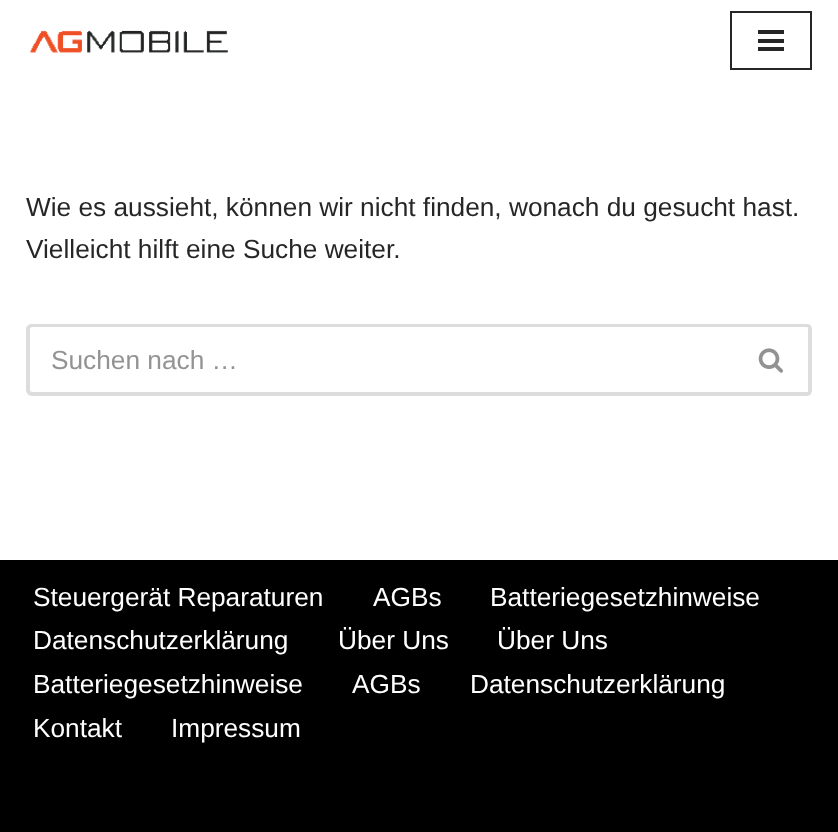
async function draw(canvas) {
	canvas.width = 838;
	canvas.height = 832;
	const c = canvas.getContext('2d');
	c.miterLimit = 4;
	c.fontKerning = 'normal';
	async function loadImage(src) {
		const img = new Image();
		img.src = src;
		await img.decode();
		return img;
	}

	c.fillStyle = '#fff';
	c.fillRect(0, 0, 838, 832);
	c.drawImage(await loadImage('img1.png'), 30, 30, 198, 23);
	c.strokeStyle = '#272626';
	c.lineWidth = 2;
	c.strokeRect(731, 12, 80, 57);
	for (const [x, y, w, h, color] of [
		[758, 30, 26, 4, '#272626'],
		[758, 39, 26, 4, '#272626'],
		[758, 47, 26, 4, '#272626'],
	]) {
		c.fillStyle = color;
		c.fillRect(x, y, w, h);
	}
	c.font = '26.25px Liberation Sans';
	c.fillText('Wie es aussieht, können wir nicht finden, wonach du gesucht hast.', 26, 216);
	c.fillText('Vielleicht hilft eine Suche weiter.', 26, 258);
	c.fillStyle = '#ddd';
	c.beginPath();
	c.moveTo(32, 324);
	c.lineTo(733, 324);
	c.lineTo(733, 396);
	c.lineTo(32, 396);
	c.bezierCurveTo(29, 396, 26, 393, 26, 390);
	c.lineTo(26, 329);
	c.bezierCurveTo(26, 326, 29, 324, 32, 324);
	c.closePath();
	c.moveTo(32, 327);
	c.lineTo(733, 327);
	c.lineTo(733, 392);
	c.lineTo(32, 392);
	c.bezierCurveTo(31, 392, 30, 391, 30, 390);
	c.lineTo(30, 329);
	c.bezierCurveTo(30, 328, 31, 327, 32, 327);
	c.closePath();
	c.fill('evenodd');
	c.fillStyle = '#939393';
	c.fillText('Suchen nach …', 51, 369);
	c.fillStyle = '#ddd';
	c.beginPath();
	c.moveTo(733, 324);
	c.lineTo(807, 324);
	c.bezierCurveTo(810, 324, 812, 326, 812, 329);
	c.lineTo(812, 390);
	c.bezierCurveTo(812, 393, 810, 396, 807, 396);
	c.lineTo(733, 396);
	c.closePath();
	c.moveTo(733, 327);
	c.lineTo(807, 327);
	c.bezierCurveTo(808, 327, 808, 328, 808, 329);
	c.lineTo(808, 390);
	c.bezierCurveTo(808, 391, 808, 392, 807, 392);
	c.lineTo(733, 392);
	c.closePath();
	c.fill('evenodd');
	c.drawImage(await loadImage('img2.png'), 758, 348, 25, 25);
	c.fillStyle = '#000';
	c.fillRect(0, 560, 838, 272);
	c.fillStyle = '#fff';
	for (const [text, x, y] of [
		['Steuergerät Reparaturen', 33, 606],
		['AGBs', 373, 606],
		['Batteriegesetzhinweise', 490, 606],
		['Datenschutzerklärung', 33, 649],
		['Über Uns', 338, 649],
		['Über Uns', 497, 649],
		['Batteriegesetzhinweise', 33, 693],
		['AGBs', 352, 693],
		['Datenschutzerklärung', 470, 693],
		['Kontakt', 33, 737],
		['Impressum', 171, 737],
	]) {
		c.fillText(text, x, y);
	}
}

draw(document.querySelector('canvas'));
